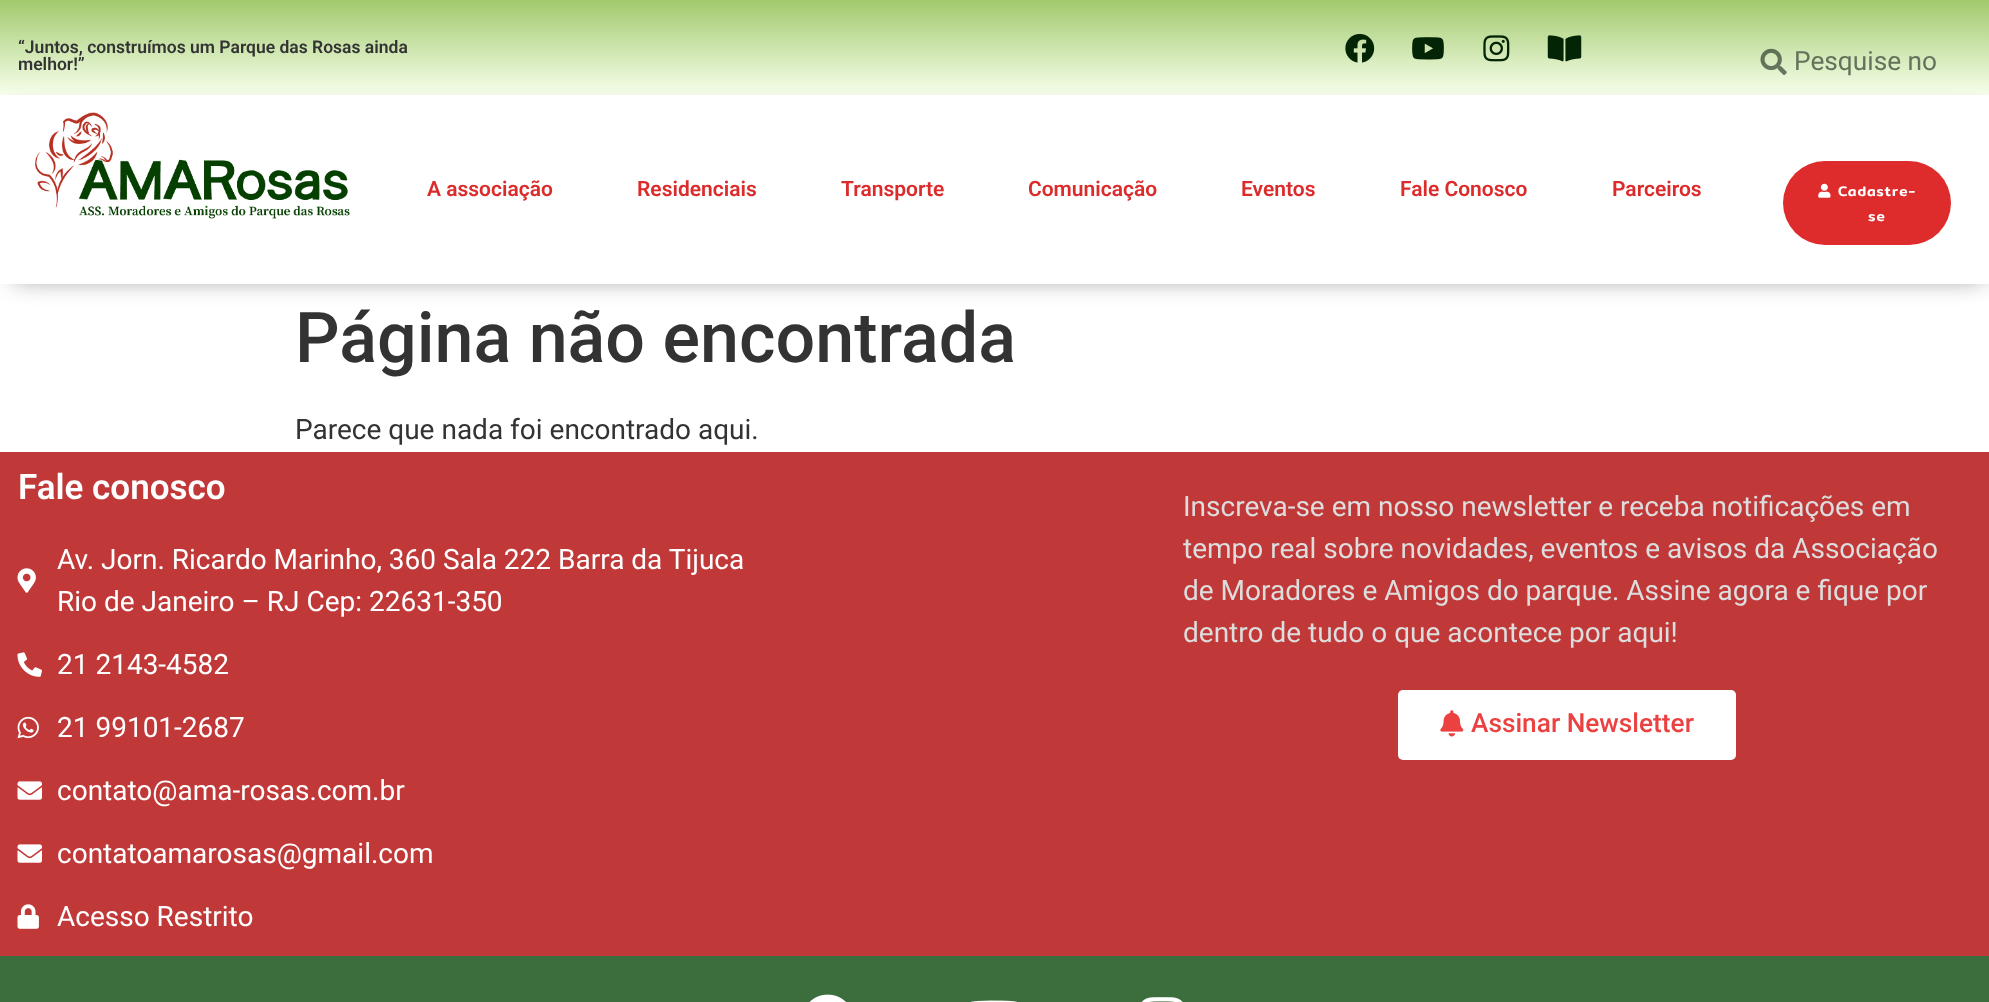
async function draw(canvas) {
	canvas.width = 1989;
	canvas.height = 1002;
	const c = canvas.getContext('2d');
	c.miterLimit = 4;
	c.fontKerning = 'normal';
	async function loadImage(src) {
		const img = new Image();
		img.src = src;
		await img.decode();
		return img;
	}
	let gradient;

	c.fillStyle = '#fff';
	c.fillRect(0, 0, 1989, 1002);
	gradient = c.createLinearGradient(995, 0, 995, 95);
	gradient.addColorStop(0, '#a2ca6d');
	gradient.addColorStop(1, '#f7ffec');
	c.fillStyle = gradient;
	c.fillRect(0, 0, 1989, 95);
	c.font = '600 17.5px Roboto';
	c.fillStyle = '#333';
	c.fillText('“Juntos, construímos um Parque das Rosas ainda', 18, 53);
	c.fillText('melhor!”', 18, 70);
	c.drawImage(await loadImage('img1.png'), 1345, 33, 30, 30);
	c.drawImage(await loadImage('img2.png'), 1412, 37, 32, 23);
	c.drawImage(await loadImage('img3.png'), 1483, 35, 27, 27);
	c.drawImage(await loadImage('img4.png'), 1547, 35, 35, 27);
	c.drawImage(await loadImage('img5.png'), 1760, 48, 27, 27);
	c.font = '26.25px Roboto';
	c.fillStyle = '#64725b';
	c.fillText('Pesquise no', 1794, 70);
	c.fillStyle = '#00000066';
	c.filter = 'blur(11.5px)';
	c.beginPath();
	c.rect(14, 112, 1969, 168);
	c.fill();
	c.filter = 'none';
	c.fillStyle = '#fff';
	c.fillRect(0, 95, 1989, 189);
	c.drawImage(await loadImage('img6.png'), 35, 112, 315, 107);
	c.font = '600 21px Roboto';
	c.fillStyle = '#db2b2b';
	for (const [text, x, y] of [
		['A associação', 427, 196],
		['Residenciais', 637, 196],
		['Transporte', 841, 196],
		['Comunicação', 1028, 196],
		['Eventos', 1241, 196],
		['Fale Conosco', 1400, 196],
		['Parceiros', 1612, 196],
	]) {
		c.fillText(text, x, y);
	}
	c.fillStyle = '#de2c2c';
	c.beginPath();
	c.roundRect(1783, 161, 168, 84, 42);
	c.fill();
	c.drawImage(await loadImage('img7.png'), 1818, 183, 13, 15);
	c.letterSpacing = '1px';
	c.font = '500 14px Mitr';
	c.fillStyle = '#fff';
	c.fillText('Cadastre-', 1838, 196);
	c.fillText('se', 1868, 221);
	c.letterSpacing = '0px';
	c.font = '500 70px Roboto';
	c.fillStyle = '#333';
	c.fillText('Página não encontrada', 295, 362);
	c.font = '28px Roboto';
	c.fillText('Parece que nada foi encontrado aqui.', 295, 439);
	c.fillStyle = '#c13838';
	c.fillRect(0, 452, 1989, 504);
	c.font = '600 35px Roboto';
	c.fillStyle = '#fff';
	c.fillText('Fale conosco', 18, 499);
	c.drawImage(await loadImage('img8.png'), 17, 568, 19, 25);
	c.font = '28px Roboto';
	c.fillText('Av. Jorn. Ricardo Marinho, 360 Sala 222 Barra da Tijuca', 57, 569);
	c.fillText('Rio de Janeiro – RJ Cep: 22631-350', 57, 611);
	c.drawImage(await loadImage('img9.png'), 17, 652, 25, 25);
	c.fillText('21 2143-4582', 57, 674);
	c.drawImage(await loadImage('img10.png'), 17, 716, 22, 23);
	c.fillText('21 99101-2687', 57, 737);
	c.drawImage(await loadImage('img11.png'), 17, 781, 25, 19);
	c.fillText('contato@ama-rosas.com.br', 57, 800);
	c.drawImage(await loadImage('img11.png'), 17, 844, 25, 19);
	c.fillText('contatoamarosas@gmail.com', 57, 863);
	c.drawImage(await loadImage('img12.png'), 17, 904, 22, 25);
	c.fillText('Acesso Restrito', 57, 926);
	c.fillStyle = '#ddd';
	for (const [text, x, y] of [
		['Inscreva-se em nosso newsletter e receba notificações em', 1183, 516],
		['tempo real sobre novidades, eventos e avisos da Associação', 1183, 558],
		['de Moradores e Amigos do parque. Assine agora e fique por', 1183, 600],
		['dentro de tudo o que acontece por aqui!', 1183, 642],
	]) {
		c.fillText(text, x, y);
	}
	c.fillStyle = '#fff';
	c.beginPath();
	c.roundRect(1398, 690, 338, 70, 5);
	c.fill();
	c.drawImage(await loadImage('img13.png'), 1440, 710, 24, 27);
	c.font = '500 26.25px Roboto';
	c.fillStyle = '#ec4141';
	c.fillText('Assinar Newsletter', 1471, 732);
	c.fillStyle = '#3c6e3d';
	c.fillRect(0, 956, 1989, 46);
	c.drawImage(await loadImage('img14.png'), 809, 994, 37, 8);
	c.drawImage(await loadImage('img15.png'), 971, 1000, 46, 2);
	c.drawImage(await loadImage('img16.png'), 1141, 997, 42, 5);
}

draw(document.querySelector('canvas'));
